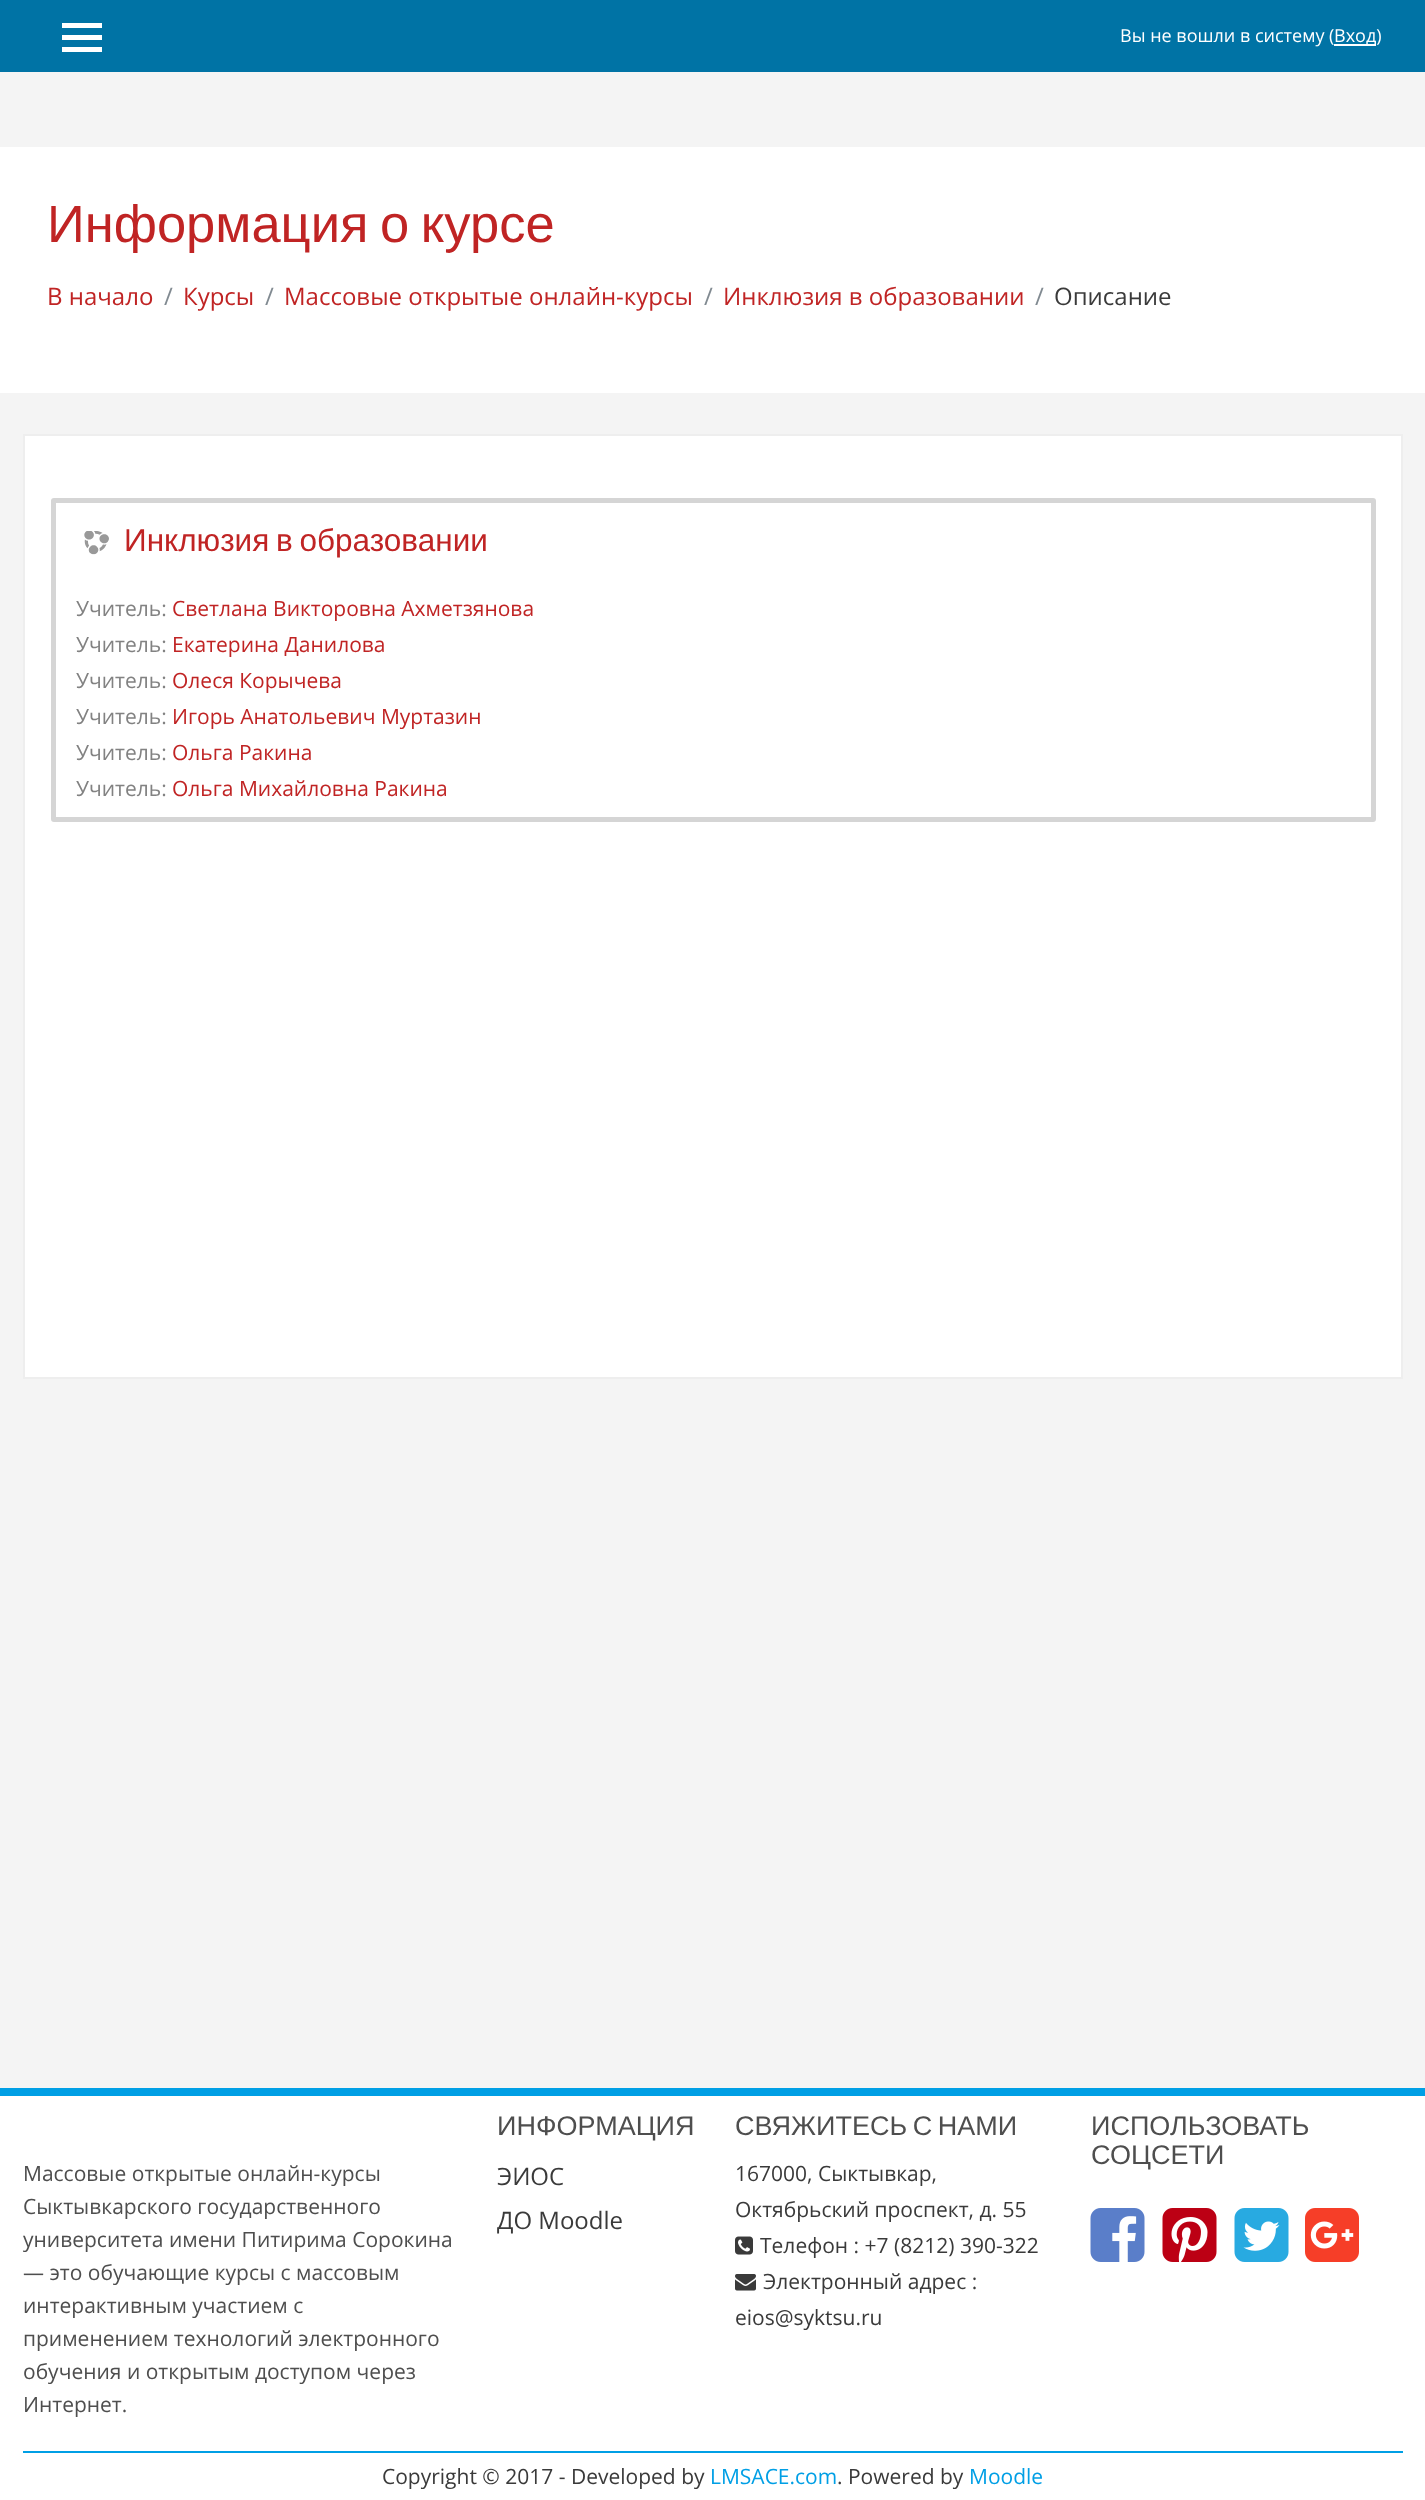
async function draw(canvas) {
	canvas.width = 1425;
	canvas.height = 2500;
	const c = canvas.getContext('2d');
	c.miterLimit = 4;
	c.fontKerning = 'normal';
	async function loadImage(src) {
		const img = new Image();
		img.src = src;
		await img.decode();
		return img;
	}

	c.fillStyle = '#f4f4f4';
	c.fillRect(0, 0, 1425, 2500);
	for (const [x, y, w, h, color] of [
		[0, 0, 1425, 72, '#0073a5'],
		[62, 23, 40, 5, '#fff'],
		[62, 35, 40, 5, '#fff'],
		[62, 47, 40, 5, '#fff'],
	]) {
		c.fillStyle = color;
		c.fillRect(x, y, w, h);
	}
	c.font = '18px Open Sans';
	c.fillText('Вы не вошли в систему (', 1120, 42);
	c.fillRect(1334, 44, 42, 2);
	c.fillText('Вход)', 1334, 42);
	c.fillRect(0, 147, 1425, 246);
	c.wordSpacing = '-3px';
	c.font = '52.5px Liberation Sans';
	c.fillStyle = '#c02424';
	c.fillText('Информация о курсе', 47, 242);
	c.wordSpacing = '0px';
	c.font = '24px Open Sans';
	c.fillText('В начало', 47, 305);
	c.fillStyle = '#818a91';
	c.fillText('/', 164, 305);
	c.fillStyle = '#c02424';
	c.fillText('Курсы', 183, 305);
	c.fillStyle = '#818a91';
	c.fillText('/', 265, 305);
	c.fillStyle = '#c02424';
	c.fillText('Массовые открытые онлайн-курсы', 284, 305);
	c.fillStyle = '#818a91';
	c.fillText('/', 704, 305);
	c.fillStyle = '#c02424';
	c.fillText('Инклюзия в образовании', 723, 305);
	c.fillStyle = '#818a91';
	c.fillText('/', 1035, 305);
	c.fillStyle = '#3a3a3a';
	c.fillText('Описание', 1054, 305);
	c.fillStyle = '#fff';
	c.beginPath();
	c.rect(24, 435, 1378, 943);
	c.fill();
	c.strokeStyle = '#eee';
	c.lineWidth = 2;
	c.stroke();
	c.beginPath();
	c.roundRect(53.5, 500.5, 1320, 319, 0.5);
	c.strokeStyle = '#d5d5d5';
	c.lineWidth = 5;
	c.stroke();
	c.drawImage(await loadImage('img1.png'), 84, 531, 25, 24);
	c.wordSpacing = '-2px';
	c.font = '31.5px Liberation Sans';
	c.fillStyle = '#c02424';
	c.fillText('Инклюзия в образовании', 124, 551);
	c.wordSpacing = '0px';
	c.font = '21px Open Sans';
	c.fillStyle = '#828282';
	c.fillText('Учитель:', 76, 616);
	c.fillStyle = '#c02424';
	c.fillText('Светлана Викторовна Ахметзянова', 172, 616);
	c.fillStyle = '#828282';
	c.fillText('Учитель:', 76, 652);
	c.fillStyle = '#c02424';
	c.fillText('Екатерина Данилова', 172, 652);
	c.fillStyle = '#828282';
	c.fillText('Учитель:', 76, 688);
	c.fillStyle = '#c02424';
	c.fillText('Олеся Корычева', 172, 688);
	c.fillStyle = '#828282';
	c.fillText('Учитель:', 76, 724);
	c.fillStyle = '#c02424';
	c.fillText('Игорь Анатольевич Муртазин', 172, 724);
	c.fillStyle = '#828282';
	c.fillText('Учитель:', 76, 760);
	c.fillStyle = '#c02424';
	c.fillText('Ольга Ракина', 172, 760);
	c.fillStyle = '#828282';
	c.fillText('Учитель:', 76, 796);
	c.fillStyle = '#c02424';
	c.fillText('Ольга Михайловна Ракина', 172, 796);
	c.fillStyle = '#fff';
	c.fillRect(0, 2096, 1425, 404);
	c.fillStyle = '#009fe5';
	c.fillRect(0, 2088, 1425, 8);
	c.font = '27px Liberation Sans';
	c.fillStyle = '#4e4e4e';
	c.fillText('ИНФОРМАЦИЯ', 497, 2135);
	c.font = '24px Open Sans';
	c.fillStyle = '#3a3a3a';
	c.fillText('ЭИОС', 497, 2185);
	c.fillText('ДО Moodle', 497, 2229);
	c.wordSpacing = '-2px';
	c.font = '27px Liberation Sans';
	c.fillStyle = '#4e4e4e';
	c.fillText('СВЯЖИТЕСЬ С НАМИ', 735, 2135);
	c.wordSpacing = '0px';
	c.font = '21px Open Sans';
	c.fillStyle = '#3a3a3a';
	c.fillText('167000, Сыктывкар,', 735, 2181);
	c.fillText('Октябрьский проспект, д. 55', 735, 2217);
	c.drawImage(await loadImage('img2.png'), 735, 2236, 18, 19);
	c.fillText('Телефон : +7 (8212) 390-322', 760, 2253);
	c.drawImage(await loadImage('img3.png'), 735, 2274, 21, 17);
	c.fillText('Электронный адрес :', 763, 2289);
	c.fillText('eios@syktsu.ru', 735, 2325);
	c.font = '27px Liberation Sans';
	c.fillStyle = '#4e4e4e';
	c.fillText('ИСПОЛЬЗОВАТЬ', 1091, 2135);
	c.fillText('СОЦСЕТИ', 1091, 2164);
	c.drawImage(await loadImage('img4.png'), 1090, 2208, 55, 54);
	c.drawImage(await loadImage('img5.png'), 1162, 2208, 55, 54);
	c.drawImage(await loadImage('img6.png'), 1234, 2208, 55, 54);
	c.drawImage(await loadImage('img7.png'), 1305, 2208, 54, 54);
	c.font = '21px Open Sans';
	for (const [text, x, y] of [
		['Массовые открытые онлайн-курсы', 23, 2181],
		['Сыктывкарского государственного', 23, 2214],
		['университета имени Питирима Сорокина', 23, 2247],
		['— это обучающие курсы с массовым', 23, 2280],
		['интерактивным участием c', 23, 2313],
		['применением технологий электронного', 23, 2346],
		['обучения и открытым доступом через', 23, 2379],
		['Интернет.', 23, 2412],
	]) {
		c.fillText(text, x, y);
	}
	c.fillStyle = '#009fe5';
	c.fillRect(23, 2451, 1380, 2);
	c.fillStyle = '#3a3a3a';
	c.fillText('Copyright © 2017 - Developed by', 382, 2484);
	c.fillStyle = '#009fe5';
	c.fillText('LMSACE.com', 710, 2484);
	c.fillStyle = '#3a3a3a';
	c.fillText('. Powered by', 837, 2484);
	c.fillStyle = '#009fe5';
	c.fillText('Moodle', 969, 2484);
}

draw(document.querySelector('canvas'));
